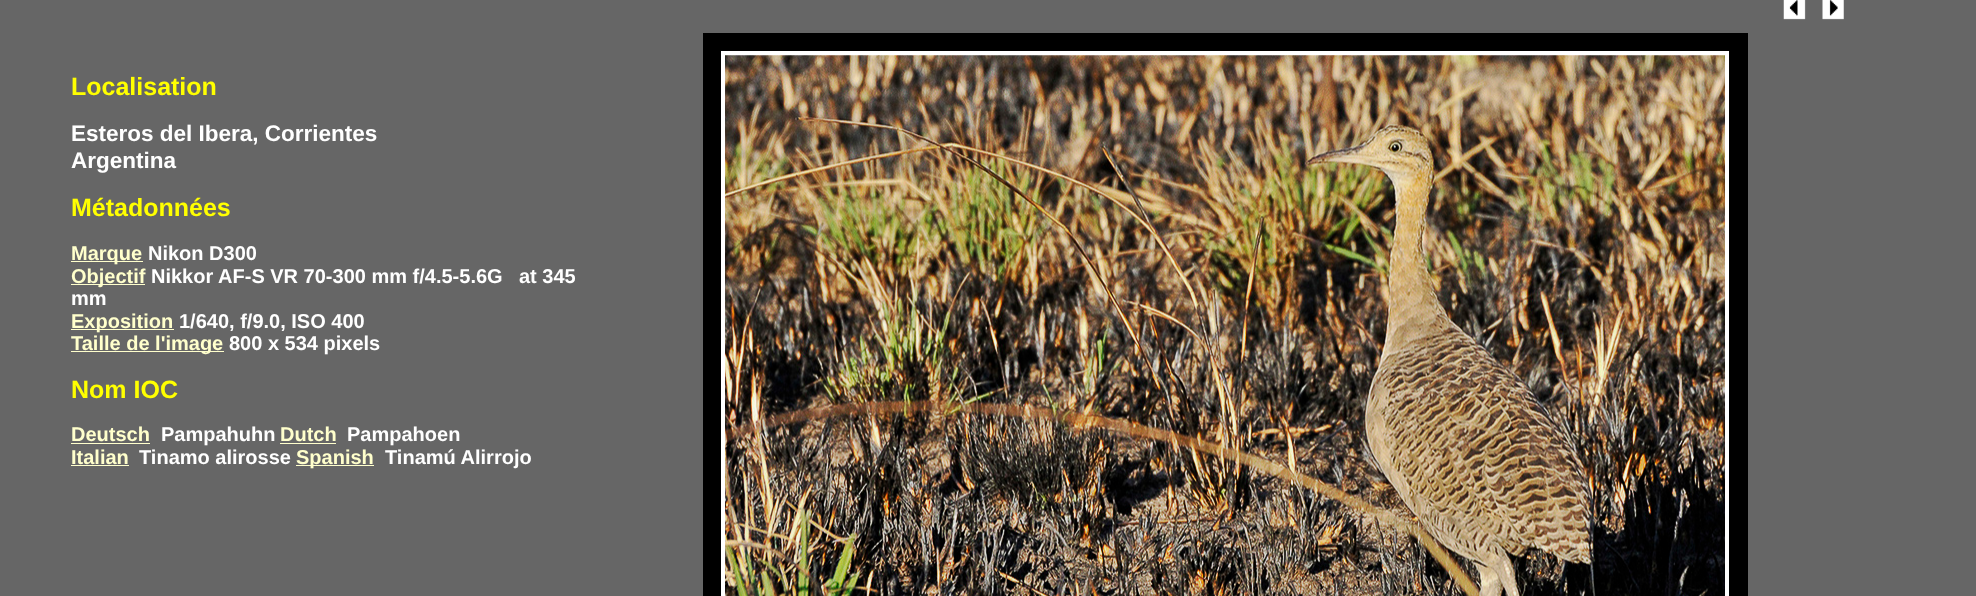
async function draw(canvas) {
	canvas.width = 1976;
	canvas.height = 596;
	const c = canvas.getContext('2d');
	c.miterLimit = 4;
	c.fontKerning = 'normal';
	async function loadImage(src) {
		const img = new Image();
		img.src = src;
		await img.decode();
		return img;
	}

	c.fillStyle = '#666';
	c.fillRect(0, 0, 1976, 596);
	c.drawImage(await loadImage('img1.png'), 1783, 0, 23, 20);
	c.drawImage(await loadImage('img2.png'), 1822, 0, 22, 20);
	c.font = 'bold 25px Liberation Sans';
	c.fillStyle = '#ff0';
	c.fillText('Localisation', 71, 95);
	c.font = 'bold 22.5px Liberation Sans';
	c.fillStyle = '#fff';
	c.fillText('Esteros del Ibera, Corrientes', 71, 141);
	c.fillText('Argentina', 71, 168);
	c.font = 'bold 25px Liberation Sans';
	c.fillStyle = '#ff0';
	c.fillText('Métadonnées', 71, 216);
	c.fillStyle = '#ffc';
	c.fillRect(71, 261, 72, 1);
	c.font = 'bold 20px Liberation Sans';
	c.fillText('Marque', 71, 260);
	c.fillStyle = '#fff';
	c.fillText('Nikon D300', 148, 260);
	c.fillStyle = '#ffc';
	c.fillRect(71, 284, 74, 1);
	c.fillText('Objectif', 71, 283);
	c.fillStyle = '#fff';
	for (const [text, x, y] of [
		['Nikkor AF-S VR 70-300 mm f/4.5-5.6G', 151, 283],
		['at 345', 519, 283],
		['mm', 71, 305],
	]) {
		c.fillText(text, x, y);
	}
	c.fillStyle = '#ffc';
	c.fillRect(71, 329, 103, 1);
	c.fillText('Exposition', 71, 328);
	c.fillStyle = '#fff';
	c.fillText('1/640, f/9.0, ISO 400', 179, 328);
	c.fillStyle = '#ffc';
	c.fillRect(71, 351, 153, 1);
	c.fillText('Taille de l\'image', 71, 350);
	c.fillStyle = '#fff';
	c.fillText('800 x 534 pixels', 229, 350);
	c.font = 'bold 25px Liberation Sans';
	c.fillStyle = '#ff0';
	c.fillText('Nom IOC', 71, 398);
	c.font = 'bold 20px Liberation Sans';
	c.fillStyle = '#ffc';
	c.fillText('Deutsch', 71, 441);
	c.fillRect(71, 443, 79, 1);
	c.fillStyle = '#fff';
	c.fillText('Pampahuhn', 161, 441);
	c.fillStyle = '#ffc';
	c.fillText('Dutch', 280, 441);
	c.fillRect(280, 443, 56, 1);
	c.fillStyle = '#fff';
	c.fillText('Pampahoen', 347, 441);
	c.fillStyle = '#ffc';
	c.fillText('Italian', 71, 464);
	c.fillRect(71, 465, 58, 1);
	c.fillStyle = '#fff';
	c.fillText('Tinamo alirosse', 139, 464);
	c.fillStyle = '#ffc';
	c.fillRect(296, 465, 78, 1);
	c.fillText('Spanish', 296, 464);
	c.fillStyle = '#fff';
	c.fillText('Tinamú Alirrojo', 385, 464);
	c.fillStyle = '#000';
	c.fillRect(703, 33, 1045, 563);
	c.fillStyle = '#fff';
	c.fillRect(721, 51, 1008, 545);
	c.drawImage(await loadImage('img3.png'), 725, 55, 1000, 541);
}

draw(document.querySelector('canvas'));
